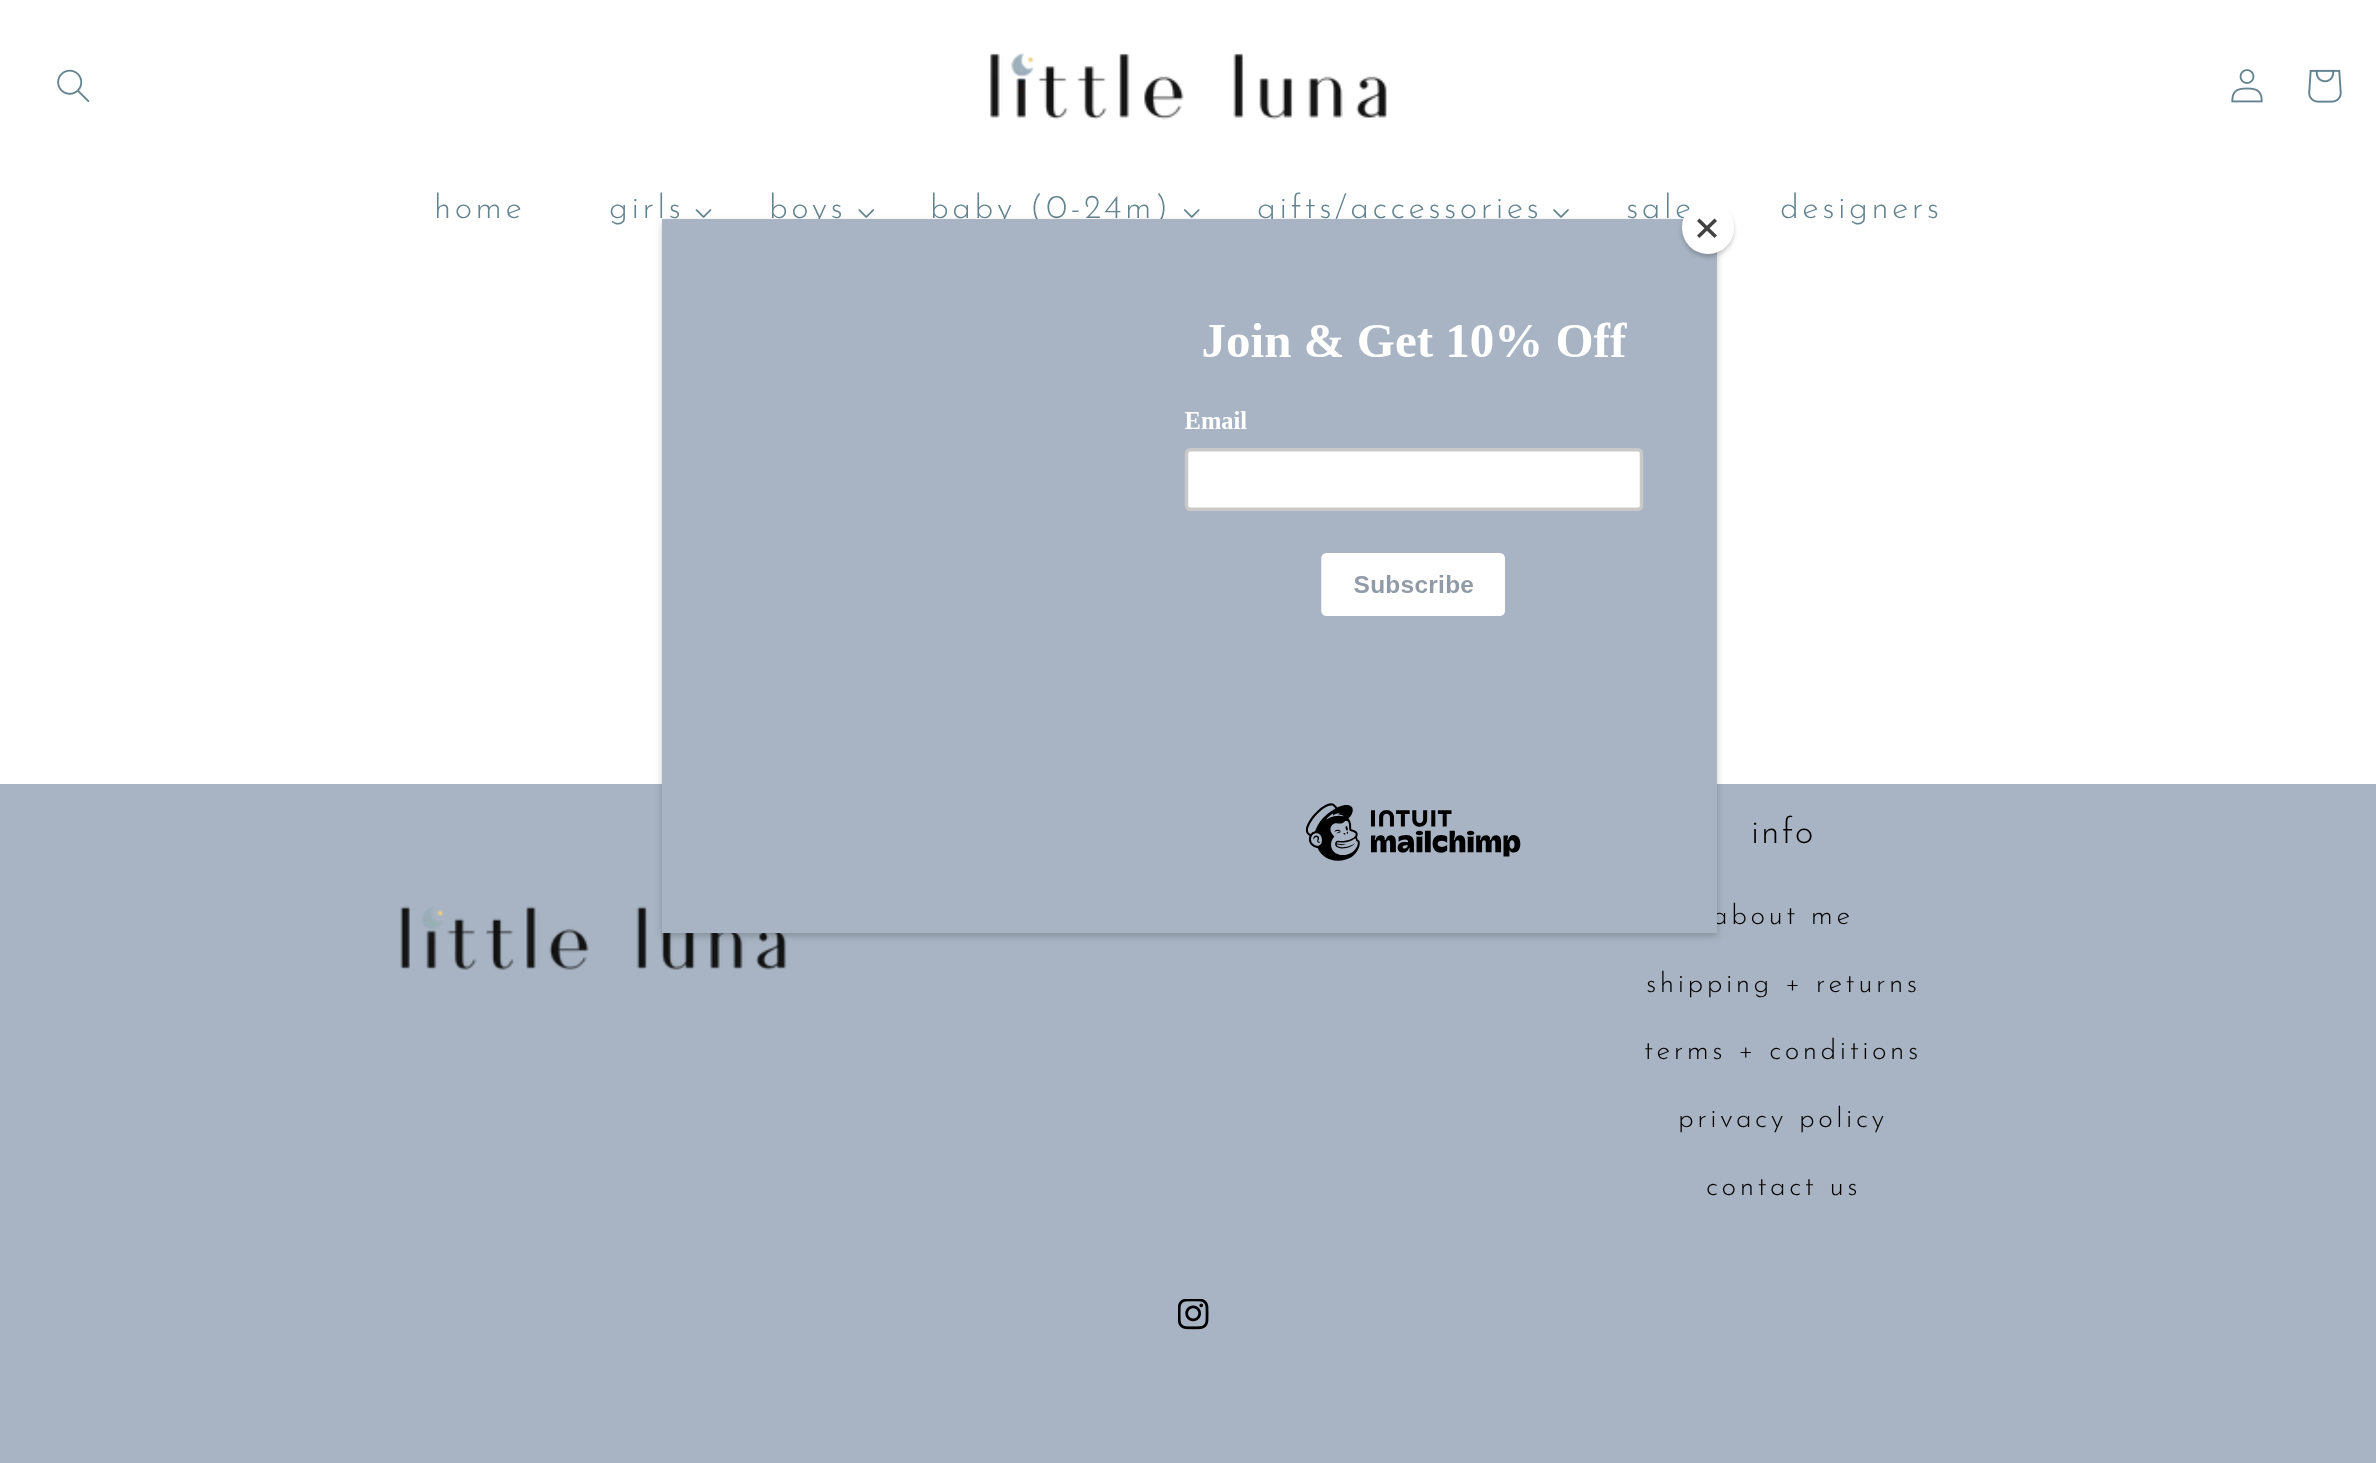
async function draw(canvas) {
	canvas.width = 2376;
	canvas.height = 1463;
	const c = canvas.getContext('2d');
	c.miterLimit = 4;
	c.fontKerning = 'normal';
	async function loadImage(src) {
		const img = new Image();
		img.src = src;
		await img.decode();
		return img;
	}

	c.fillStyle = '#fff';
	c.fillRect(0, 0, 2376, 1463);
	c.drawImage(await loadImage('img1.png'), 57, 69, 33, 34);
	c.drawImage(await loadImage('img2.png'), 990, 52, 397, 68);
	c.drawImage(await loadImage('img3.png'), 2231, 69, 32, 34);
	c.drawImage(await loadImage('img4.png'), 2308, 69, 34, 34);
	c.letterSpacing = '3.5px';
	c.font = '300 33.5px Josefin Sans';
	c.fillStyle = '#63838f';
	c.fillText('home', 434, 218);
	c.fillText('girls', 609, 218);
	c.drawImage(await loadImage('img5.png'), 695, 209, 17, 9);
	c.fillText('boys', 769, 218);
	c.drawImage(await loadImage('img6.png'), 858, 209, 16, 9);
	c.fillText('baby (0-24m)', 930, 218);
	c.drawImage(await loadImage('img7.png'), 1184, 209, 16, 9);
	c.fillText('gifts/accessories', 1257, 218);
	c.drawImage(await loadImage('img8.png'), 1553, 209, 16, 9);
	c.fillText('sale', 1626, 218);
	c.fillText('designers', 1780, 218);
	c.fillStyle = '#a8b4c3';
	c.fillRect(0, 784, 2376, 679);
	c.drawImage(await loadImage('img10.png'), 400, 906, 387, 64);
	c.fillStyle = '#00000033';
	c.filter = 'blur(3.5px)';
	c.beginPath();
	c.rect(662, 222, 1055, 714);
	c.fill();
	c.filter = 'none';
	c.font = '300 28px Josefin Sans';
	c.fillStyle = '#000';
	c.fillText('about me', 1712, 924);
	c.drawImage(await loadImage('img9.png'), 662, 219, 1055, 714);
	c.fillStyle = '#00000033';
	c.filter = 'blur(2px)';
	c.beginPath();
	c.roundRect(1682, 205, 52, 52, 26);
	c.fill();
	c.filter = 'none';
	c.fillStyle = '#fff';
	c.beginPath();
	c.roundRect(1682, 201, 52, 53, 26);
	c.fill();
	c.fillStyle = '#414141';
	c.beginPath();
	c.moveTo(1714.5, 218.5);
	c.lineTo(1717, 221);
	c.lineTo(1699.5, 238);
	c.lineTo(1697, 235.5);
	c.closePath();
	c.fill();
	c.beginPath();
	c.moveTo(1697, 221);
	c.lineTo(1699.5, 218.5);
	c.lineTo(1717, 235.5);
	c.lineTo(1714.5, 238);
	c.closePath();
	c.fill();
	c.letterSpacing = '2px';
	c.font = '300 36px Josefin Sans';
	c.fillStyle = '#000';
	c.fillText('info', 1751, 843);
	c.letterSpacing = '3.5px';
	c.font = '300 28px Josefin Sans';
	for (const [text, x, y] of [
		['shipping + returns', 1646, 992],
		['terms + conditions', 1644, 1059],
		['privacy policy', 1678, 1127],
		['contact us', 1706, 1195],
	]) {
		c.fillText(text, x, y);
	}
	c.drawImage(await loadImage('img11.png'), 1178, 1299, 31, 31);
}

draw(document.querySelector('canvas'));
